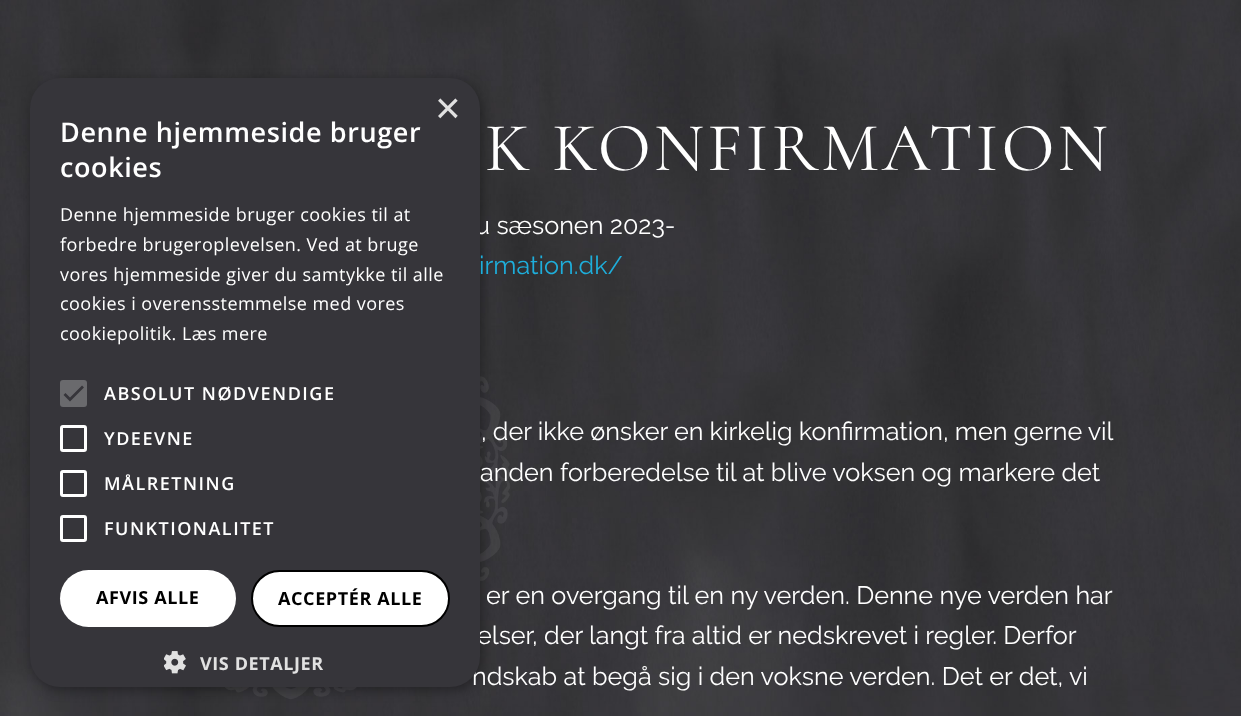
async function draw(canvas) {
	canvas.width = 1241;
	canvas.height = 716;
	const c = canvas.getContext('2d');
	c.miterLimit = 4;
	c.fontKerning = 'normal';
	async function loadImage(src) {
		const img = new Image();
		img.src = src;
		await img.decode();
		return img;
	}

	c.fillStyle = '#fff';
	c.fillRect(0, 0, 1241, 716);
	c.drawImage(await loadImage('img1.png'), 0, 0, 1241, 716);
	c.fillStyle = '#00000059';
	c.filter = 'blur(6px)';
	c.beginPath();
	c.roundRect(32, 81, 450, 609, 30);
	c.fill();
	c.filter = 'none';
	c.font = '25.2px Raleway';
	c.fillStyle = '#fff';
	c.fillText('u sæsonen 2023-', 475, 234);
	c.wordSpacing = '-0.1px';
	c.fillText('elser, der langt fra altid er nedskrevet i regler. Derfor', 477, 644);
	c.wordSpacing = '0px';
	c.fillText('ndskab at begå sig i den voksne verden. Det er det, vi', 472, 685);
	c.fillStyle = '#36353a';
	c.beginPath();
	c.roundRect(30, 78, 450, 609, 30);
	c.fill();
	c.font = '44px Liberation Sans';
	c.fillStyle = '#e1e1e1';
	c.fillText('×', 435, 123);
	c.letterSpacing = '0.6px';
	c.font = '600 27px Open Sans';
	c.fillStyle = '#fff';
	c.fillText('Denne hjemmeside bruger', 60, 142);
	c.fillText('cookies', 60, 177);
	c.letterSpacing = '0.45px';
	c.font = '18px Open Sans';
	for (const [text, x, y] of [
		['Denne hjemmeside bruger cookies til at', 60, 221],
		['forbedre brugeroplevelsen. Ved at bruge', 60, 251],
		['vores hjemmeside giver du samtykke til alle', 60, 281],
		['cookies i overensstemmelse med vores', 60, 310],
		['cookiepolitik. Læs mere', 60, 340],
	]) {
		c.fillText(text, x, y);
	}
	c.fillStyle = '#6a6a6d';
	c.beginPath();
	c.roundRect(60, 380, 27, 27, 3);
	c.fill();
	c.beginPath();
	c.moveTo(64.5, 394);
	c.lineTo(70, 399.5);
	c.lineTo(83, 386.5);
	c.strokeStyle = '#36353a';
	c.lineWidth = 2.7;
	c.stroke();
	c.letterSpacing = '1.5px';
	c.font = '600 18px Open Sans';
	c.fillStyle = '#fff';
	c.fillText('ABSOLUT NØDVENDIGE', 104, 400);
	c.beginPath();
	c.roundRect(61.5, 426.5, 24, 24, 1.5);
	c.strokeStyle = '#fff';
	c.lineWidth = 3;
	c.stroke();
	c.fillText('YDEEVNE', 104, 445);
	c.beginPath();
	c.roundRect(61.5, 471.5, 24, 24, 1.5);
	c.stroke();
	c.fillText('MÅLRETNING', 104, 490);
	c.beginPath();
	c.roundRect(61.5, 516.5, 24, 24, 1.5);
	c.stroke();
	c.fillText('FUNKTIONALITET', 104, 535);
	c.beginPath();
	c.roundRect(60, 570, 176, 57, 28.5);
	c.fill();
	c.letterSpacing = '0.6px';
	c.font = 'bold 18px Open Sans';
	c.fillStyle = '#000';
	c.fillText('AFVIS ALLE', 96, 604);
	c.fillStyle = '#fff';
	c.beginPath();
	c.roundRect(252, 571, 197, 55, 27.5);
	c.fill();
	c.strokeStyle = '#000';
	c.lineWidth = 2;
	c.stroke();
	c.fillStyle = '#000';
	c.fillText('ACCEPTÉR ALLE', 278, 605);
	c.drawImage(await loadImage('img2.png'), 164, 651, 22, 23);
	c.fillStyle = '#e1e1e1';
	c.fillText('VIS DETALJER', 200, 670);
	c.letterSpacing = '3px';
	c.font = '69.25px Cormorant';
	c.fillStyle = '#fff';
	c.fillText('K KONFIRMATION', 485, 170);
	c.letterSpacing = '0px';
	c.font = '25.2px Raleway';
	c.fillStyle = '#1eaedb';
	c.fillText('irmation.dk/', 479, 274);
	c.wordSpacing = '-0.25px';
	c.fillStyle = '#fff';
	c.fillText(', der ikke ønsker en kirkelig konfirmation, men gerne vil', 481, 440);
	c.wordSpacing = '0px';
	c.fillText('anden forberedelse til at blive voksen og markere det', 480, 481);
	c.fillText('er en overgang til en ny verden. Denne nye verden har', 486, 604);
}

draw(document.querySelector('canvas'));
